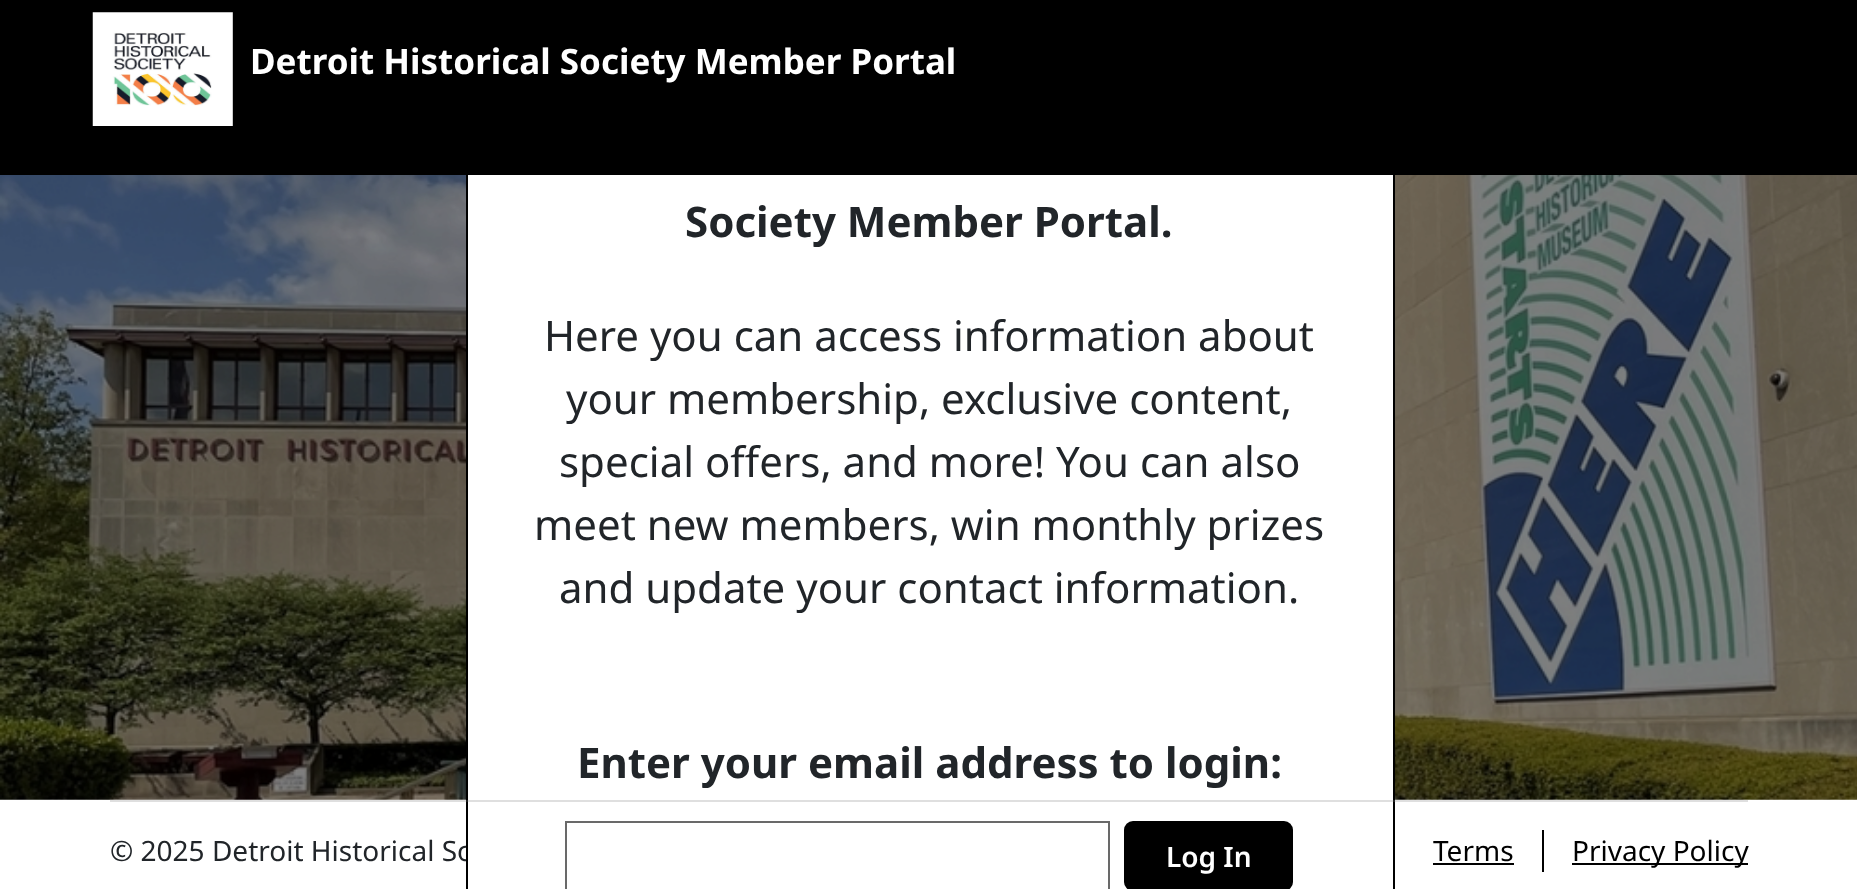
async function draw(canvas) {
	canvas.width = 1857;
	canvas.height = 889;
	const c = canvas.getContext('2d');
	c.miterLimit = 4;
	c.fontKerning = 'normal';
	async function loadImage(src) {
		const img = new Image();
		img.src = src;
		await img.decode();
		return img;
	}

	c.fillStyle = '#fff';
	c.fillRect(0, 0, 1857, 889);
	c.drawImage(await loadImage('img2.png'), 0, 175, 1857, 625);
	c.font = '28px Noto Sans';
	c.fillStyle = '#212529';
	c.fillText('© 2025 Detroit Historical So', 110, 861);
	c.fillStyle = '#fff';
	c.fillRect(468, 175, 925, 686);
	c.strokeStyle = '#000';
	c.lineWidth = 2;
	c.strokeRect(467, 90, 927, 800);
	c.fillStyle = '#000';
	c.fillRect(0, 0, 1857, 175);
	c.drawImage(await loadImage('img1.png'), 92, 12, 141, 114);
	c.font = 'bold 35px Noto Sans';
	c.fillStyle = '#fff';
	c.fillText('Detroit Historical Society Member Portal', 250, 74);
	c.font = 'bold 42px Noto Sans';
	c.fillStyle = '#212529';
	c.fillText('Society Member Portal.', 685, 237);
	c.font = '42px Noto Sans';
	for (const [text, x, y] of [
		['Here you can access information about', 544, 351],
		['your membership, exclusive content,', 566, 414],
		['special offers, and more! You can also', 559, 477],
		['meet new members, win monthly prizes', 534, 540],
		['and update your contact information.', 559, 603],
	]) {
		c.fillText(text, x, y);
	}
	c.font = 'bold 42px Noto Sans';
	c.fillText('Enter your email address to login:', 577, 778);
	c.strokeStyle = '#696969';
	c.strokeRect(566, 822, 543, 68);
	c.fillStyle = '#000';
	c.beginPath();
	c.roundRect(1124, 821, 169, 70, 9);
	c.fill();
	c.font = '600 28px Noto Sans';
	c.fillStyle = '#fff';
	c.fillText('Log In', 1166, 867);
	c.fillStyle = '#80808040';
	c.fillRect(110, 800, 1638, 2);
	c.font = '28px Noto Sans';
	c.fillStyle = '#000';
	c.fillText('Terms', 1433, 861);
	for (const [x, y, w, h, color] of [
		[1433, 863, 81, 2, '#000'],
		[1542, 830, 2, 42, '#000'],
		[1572, 863, 176, 2, '#000'],
	]) {
		c.fillStyle = color;
		c.fillRect(x, y, w, h);
	}
	c.fillText('Privacy Policy', 1572, 861);
}

draw(document.querySelector('canvas'));
